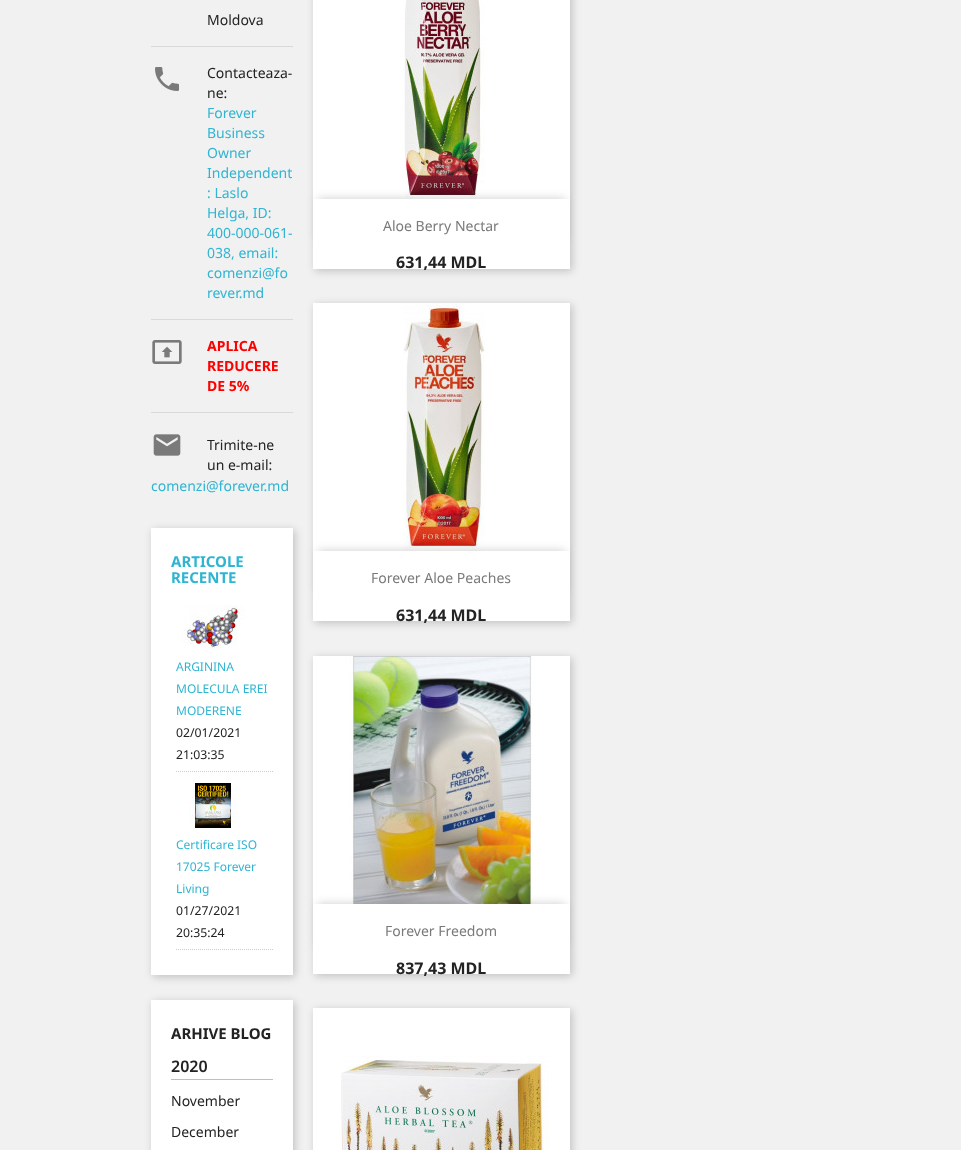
async function draw(canvas) {
	canvas.width = 961;
	canvas.height = 1150;
	const c = canvas.getContext('2d');
	c.miterLimit = 4;
	c.fontKerning = 'normal';
	async function loadImage(src) {
		const img = new Image();
		img.src = src;
		await img.decode();
		return img;
	}

	c.fillStyle = '#f1f1f1';
	c.fillRect(0, 0, 961, 1150);
	c.font = '14px Noto Sans';
	c.fillStyle = '#232323';
	c.fillText('Moldova', 207, 25);
	c.fillStyle = '#d9d9d9';
	c.fillRect(151, 46, 142, 1);
	c.drawImage(await loadImage('img1.png'), 155, 67, 24, 24);
	c.fillStyle = '#232323';
	c.fillText('Contacteaza-', 207, 78);
	c.fillText('ne:', 207, 98);
	c.fillStyle = '#2fb5d2';
	for (const [text, x, y] of [
		['Forever', 207, 118],
		['Business', 207, 138],
		['Owner', 207, 158],
		['Independent', 207, 178],
		[': Laslo', 207, 198],
		['Helga, ID:', 207, 218],
		['400-000-061-', 207, 238],
		['038, email:', 207, 258],
		['comenzi@fo', 207, 278],
		['rever.md', 207, 298],
	]) {
		c.fillText(text, x, y);
	}
	c.fillStyle = '#d9d9d9';
	c.fillRect(151, 319, 142, 1);
	c.drawImage(await loadImage('img2.png'), 152, 340, 30, 24);
	c.font = 'bold 14px Noto Sans';
	c.fillStyle = '#f00';
	for (const [text, x, y] of [
		['APLICA', 207, 351],
		['REDUCERE', 207, 371],
		['DE 5%', 207, 391],
	]) {
		c.fillText(text, x, y);
	}
	c.fillStyle = '#d9d9d9';
	c.fillRect(151, 412, 142, 1);
	c.drawImage(await loadImage('img3.png'), 153, 434, 28, 22);
	c.font = '14px Noto Sans';
	c.fillStyle = '#232323';
	c.fillText('Trimite-ne', 207, 450);
	c.fillText('un e-mail:', 207, 470);
	c.fillStyle = '#2fb5d2';
	c.fillText('comenzi@forever.md', 151, 491);
	c.fillStyle = '#00000033';
	c.filter = 'blur(4px)';
	c.beginPath();
	c.rect(153, 530, 142, 447);
	c.fill();
	c.filter = 'none';
	c.fillStyle = '#fff';
	c.fillRect(151, 528, 142, 447);
	c.font = 'bold 15px Noto Sans';
	c.fillStyle = '#2fb5d2';
	c.fillText('ARTICOLE', 171, 567);
	c.fillText('RECENTE', 171, 583);
	c.beginPath();
	c.moveTo(176, 771.5);
	c.lineTo(273, 771.5);
	c.strokeStyle = '#ccc';
	c.setLineDash([1, 1]);
	c.stroke();
	c.drawImage(await loadImage('img4.png'), 181, 605, 64, 45);
	c.font = '12px Noto Sans';
	for (const [text, x, y] of [
		['ARGININA', 176, 671],
		['MOLECULA EREI', 176, 693],
		['MODERENE', 176, 715],
	]) {
		c.fillText(text, x, y);
	}
	c.font = '12.25px Noto Sans';
	c.fillStyle = '#232323';
	c.fillText('02/01/2021', 176, 737);
	c.fillText('21:03:35', 176, 759);
	c.beginPath();
	c.moveTo(176, 949.5);
	c.lineTo(273, 949.5);
	c.stroke();
	c.drawImage(await loadImage('img5.png'), 189, 783, 48, 45);
	c.font = '12px Noto Sans';
	c.fillStyle = '#2fb5d2';
	for (const [text, x, y] of [
		['Certificare ISO', 176, 849],
		['17025 Forever', 176, 871],
		['Living', 176, 893],
	]) {
		c.fillText(text, x, y);
	}
	c.font = '12.25px Noto Sans';
	c.fillStyle = '#232323';
	c.fillText('01/27/2021', 176, 915);
	c.fillText('20:35:24', 176, 937);
	c.fillStyle = '#00000033';
	c.filter = 'blur(4px)';
	c.beginPath();
	c.rect(153, 1002, 142, 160);
	c.fill();
	c.filter = 'none';
	c.fillStyle = '#fff';
	c.fillRect(151, 1000, 142, 150);
	c.font = 'bold 15px Noto Sans';
	c.fillStyle = '#232323';
	c.fillText('ARHIVE BLOG', 171, 1039);
	c.fillStyle = '#bfbfbf';
	c.fillRect(171, 1079, 102, 1);
	c.font = '600 16px Noto Sans';
	c.fillStyle = '#232323';
	c.fillText('2020', 171, 1072);
	c.font = '14px Noto Sans';
	c.fillText('November', 171, 1106);
	c.fillText('December', 171, 1137);
	c.fillStyle = '#00000033';
	c.filter = 'blur(4px)';
	c.beginPath();
	c.rect(315, -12, 257, 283);
	c.fill();
	c.filter = 'none';
	c.fillStyle = '#fff';
	c.fillRect(313, 0, 257, 199);
	c.drawImage(await loadImage('img6.png'), 404, 0, 81, 199);
	c.fillStyle = '#00000033';
	c.filter = 'blur(5px)';
	c.beginPath();
	c.rect(318, 199, 247, 40);
	c.fill();
	c.filter = 'none';
	c.fillStyle = '#fff';
	c.fillRect(313, 199, 257, 70);
	c.fillStyle = '#7a7a7a';
	c.fillText('Aloe Berry Nectar', 383, 231);
	c.font = 'bold 16px Noto Sans';
	c.fillStyle = '#232323';
	c.fillText('631,44 MDL', 396, 268);
	c.fillStyle = '#00000033';
	c.filter = 'blur(4px)';
	c.beginPath();
	c.rect(315, 305, 257, 318);
	c.fill();
	c.filter = 'none';
	c.fillStyle = '#fff';
	c.fillRect(313, 303, 257, 248);
	c.drawImage(await loadImage('img7.png'), 403, 303, 82, 248);
	c.fillStyle = '#00000033';
	c.filter = 'blur(5px)';
	c.beginPath();
	c.rect(318, 551, 247, 40);
	c.fill();
	c.filter = 'none';
	c.fillStyle = '#fff';
	c.fillRect(313, 551, 257, 70);
	c.font = '14px Noto Sans';
	c.fillStyle = '#7a7a7a';
	c.fillText('Forever Aloe Peaches', 371, 583);
	c.font = 'bold 16px Noto Sans';
	c.fillStyle = '#232323';
	c.fillText('631,44 MDL', 396, 621);
	c.fillStyle = '#00000033';
	c.filter = 'blur(4px)';
	c.beginPath();
	c.rect(315, 658, 257, 318);
	c.fill();
	c.filter = 'none';
	c.fillStyle = '#fff';
	c.fillRect(313, 656, 257, 248);
	c.drawImage(await loadImage('img8.png'), 349, 656, 184, 248);
	c.fillStyle = '#00000033';
	c.filter = 'blur(5px)';
	c.beginPath();
	c.rect(318, 904, 247, 40);
	c.fill();
	c.filter = 'none';
	c.fillStyle = '#fff';
	c.fillRect(313, 904, 257, 70);
	c.font = '14px Noto Sans';
	c.fillStyle = '#7a7a7a';
	c.fillText('Forever Freedom', 385, 936);
	c.font = 'bold 16px Noto Sans';
	c.fillStyle = '#232323';
	c.fillText('837,43 MDL', 396, 974);
	c.fillStyle = '#00000033';
	c.filter = 'blur(4px)';
	c.beginPath();
	c.rect(315, 1010, 257, 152);
	c.fill();
	c.filter = 'none';
	c.fillStyle = '#fff';
	c.fillRect(313, 1008, 257, 142);
	c.drawImage(await loadImage('img9.png'), 341, 1056, 208, 94);
}

draw(document.querySelector('canvas'));
